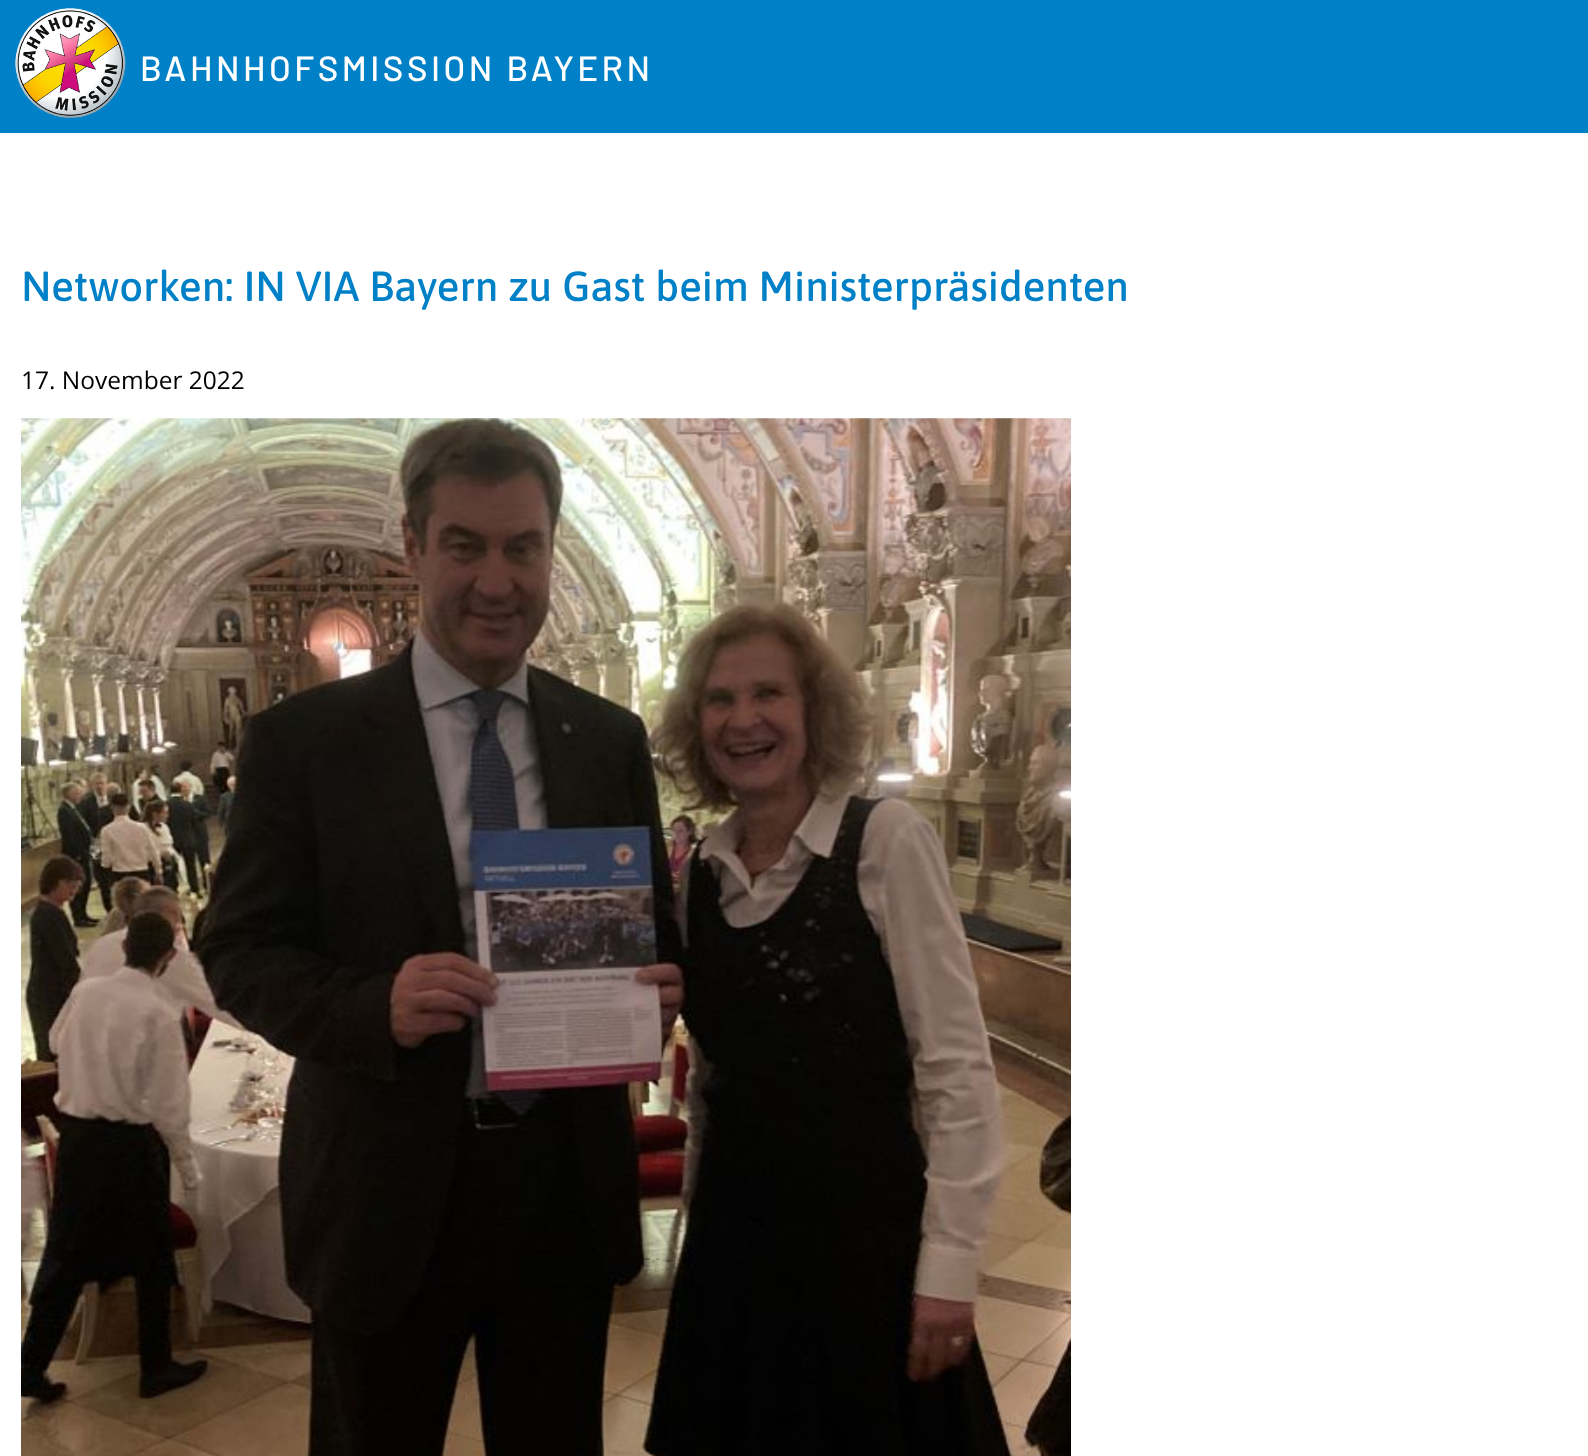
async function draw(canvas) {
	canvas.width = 1588;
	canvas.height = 1456;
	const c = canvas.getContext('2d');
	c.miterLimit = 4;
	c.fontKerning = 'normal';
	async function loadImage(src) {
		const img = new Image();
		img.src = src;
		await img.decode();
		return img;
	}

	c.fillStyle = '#fff';
	c.fillRect(0, 0, 1588, 1456);
	c.fillStyle = '#0081c7';
	c.fillRect(0, 0, 1588, 133);
	c.drawImage(await loadImage('img1.png'), 15, 8, 111, 110);
	c.letterSpacing = '3.5px';
	c.font = '500 35px Barlow';
	c.fillStyle = '#fff';
	c.fillText('BAHNHOFSMISSION BAYERN', 140, 81);
	c.letterSpacing = '0px';
	c.font = '500 42px Asap';
	c.fillStyle = '#0081c7';
	c.fillText('Networken: IN VIA Bayern zu Gast beim Ministerpräsidenten', 21, 301);
	c.font = '24.5px Open Sans';
	c.fillStyle = '#000';
	c.fillText('17. November 2022', 21, 389);
	c.drawImage(await loadImage('img2.png'), 21, 418, 1050, 1038);
}

draw(document.querySelector('canvas'));
